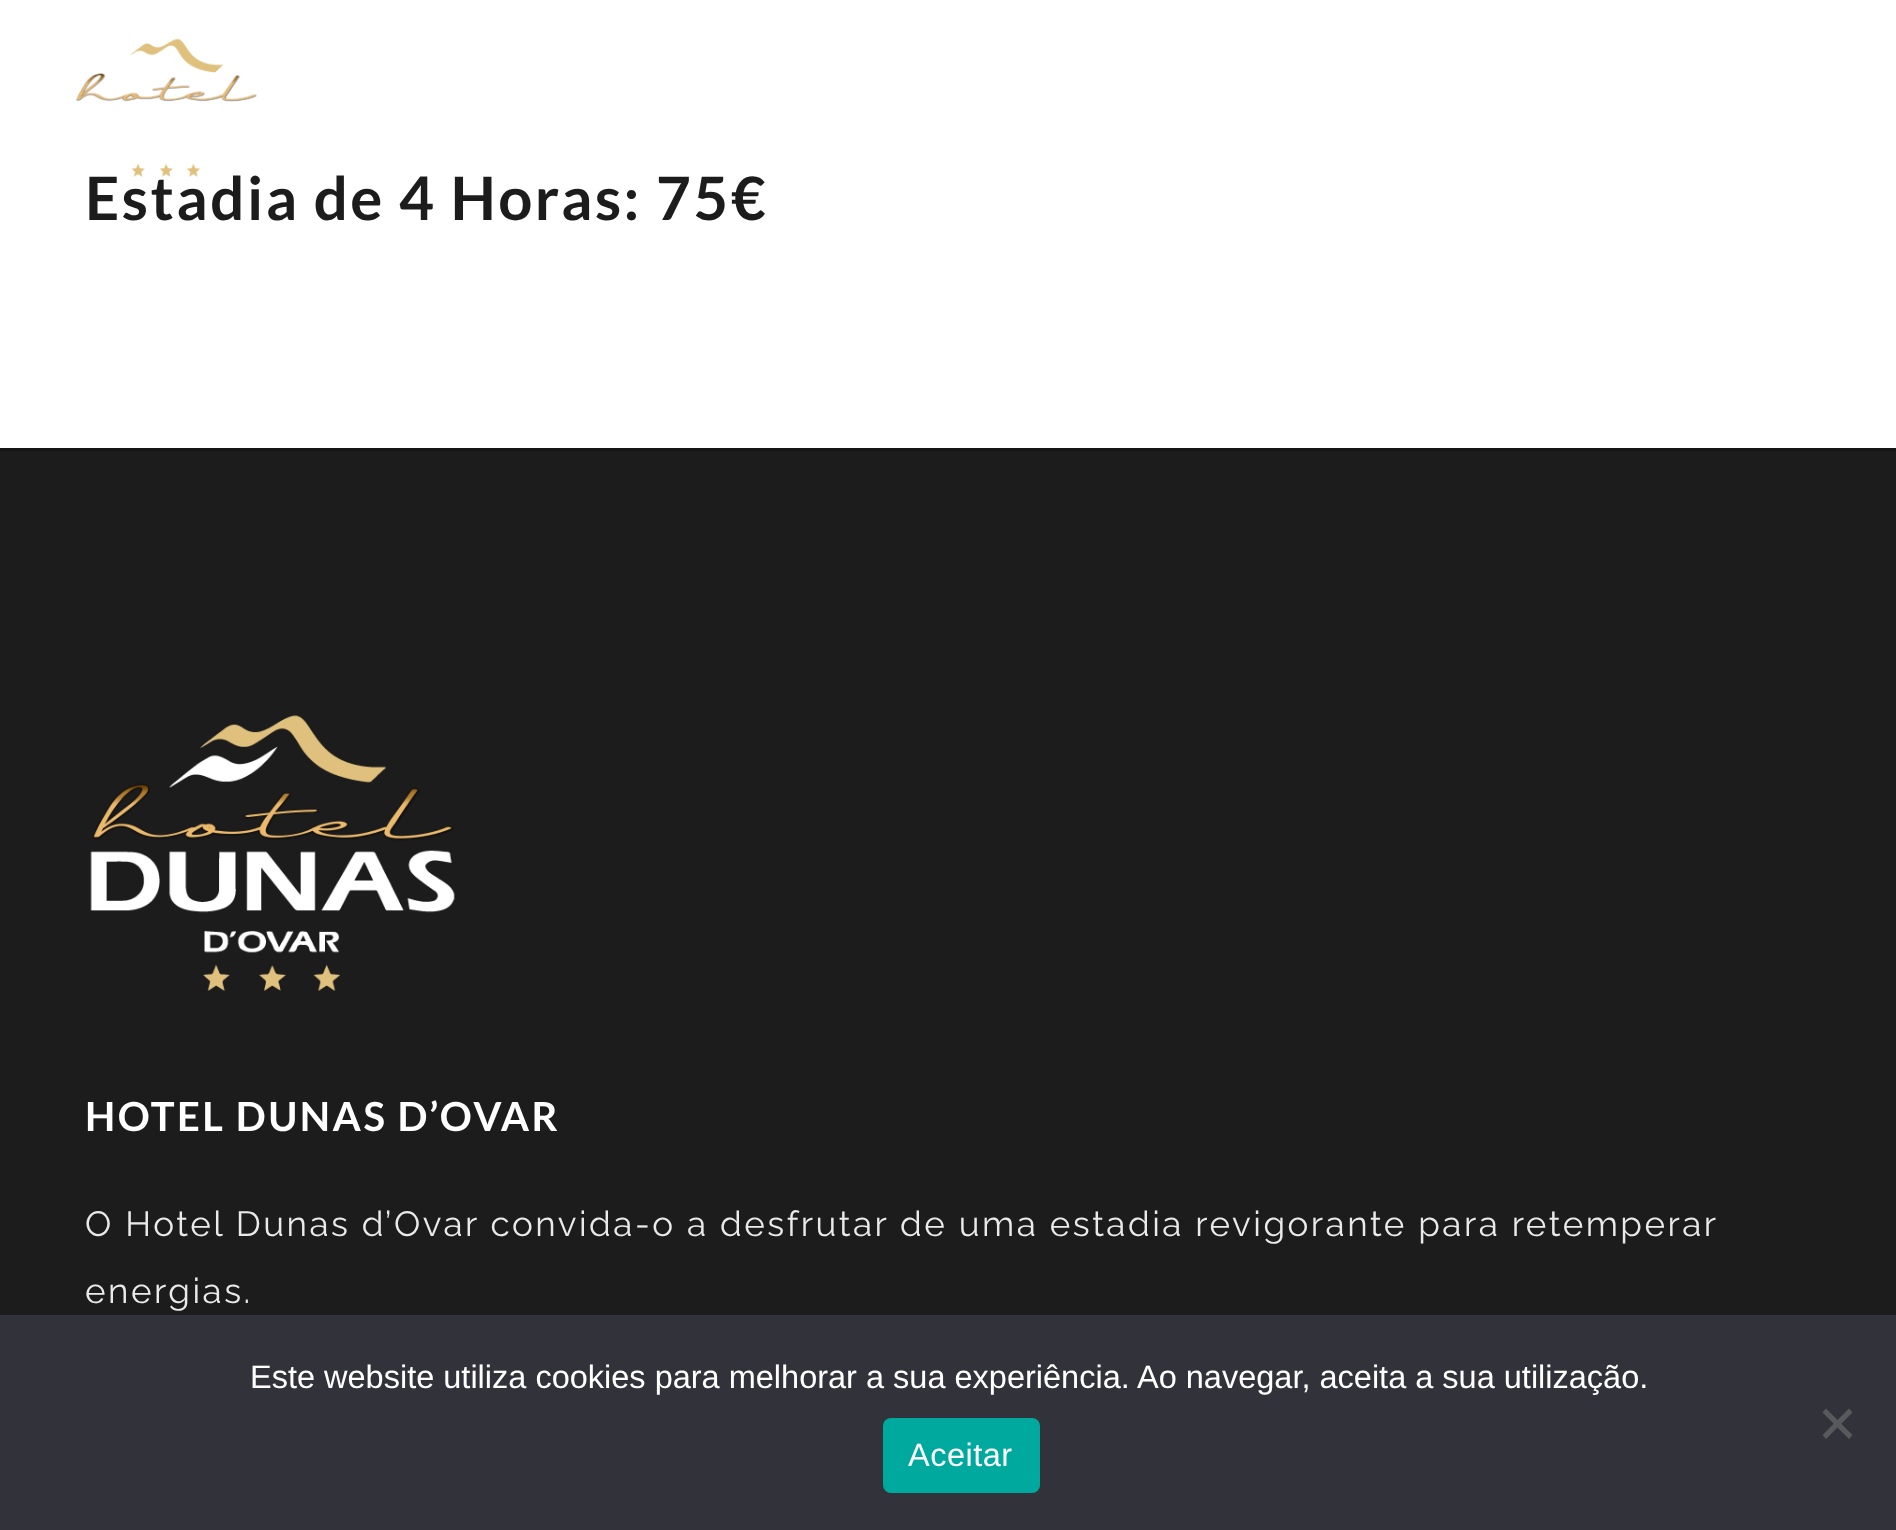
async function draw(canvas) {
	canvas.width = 1896;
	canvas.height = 1530;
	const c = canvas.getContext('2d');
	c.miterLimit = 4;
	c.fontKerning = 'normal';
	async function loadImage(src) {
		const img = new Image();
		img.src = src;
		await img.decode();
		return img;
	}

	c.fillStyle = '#fff';
	c.fillRect(0, 0, 1896, 1530);
	c.letterSpacing = '2.5px';
	c.font = 'bold 60px Lato';
	c.fillStyle = '#1c1c1c';
	c.fillText('Estadia de 4 Horas: 75€', 85, 220);
	c.drawImage(await loadImage('img1.png'), 76, 38, 181, 139);
	c.fillRect(0, 451, 1896, 864);
	c.fillStyle = '#151515';
	c.fillRect(0, 448, 1896, 3);
	c.drawImage(await loadImage('img2.png'), 90, 715, 365, 276);
	c.font = 'bold 40px Lato';
	c.fillStyle = '#fff';
	c.fillText('HOTEL DUNAS D’OVAR', 85, 1131);
	c.font = '35px Raleway';
	c.fillStyle = '#eaeaea';
	c.fillText('O Hotel Dunas d’Ovar convida-o a desfrutar de uma estadia revigorante para retemperar', 85, 1236);
	c.fillText('energias.', 85, 1303);
	c.fillStyle = '#32323a';
	c.fillRect(0, 1315, 1896, 215);
	c.letterSpacing = '0px';
	c.font = '32.5px Liberation Sans';
	c.fillStyle = '#fff';
	c.fillText('Este website utiliza cookies para melhorar a sua experiência. Ao navegar, aceita a sua utilização.', 250, 1388);
	c.fillStyle = '#59595d';
	c.beginPath();
	c.moveTo(1849, 1408.5);
	c.lineTo(1852.5, 1412.5);
	c.lineTo(1826, 1439);
	c.lineTo(1822.5, 1435);
	c.closePath();
	c.fill();
	c.beginPath();
	c.moveTo(1822.5, 1412.5);
	c.lineTo(1826, 1408.5);
	c.lineTo(1852.5, 1435);
	c.lineTo(1849, 1439);
	c.closePath();
	c.fill();
	c.fillStyle = '#00a99d';
	c.beginPath();
	c.roundRect(883, 1418, 157, 75, 8);
	c.fill();
	c.letterSpacing = '0.5px';
	c.fillStyle = '#fff';
	c.fillText('Aceitar', 908, 1466);
}

draw(document.querySelector('canvas'));
